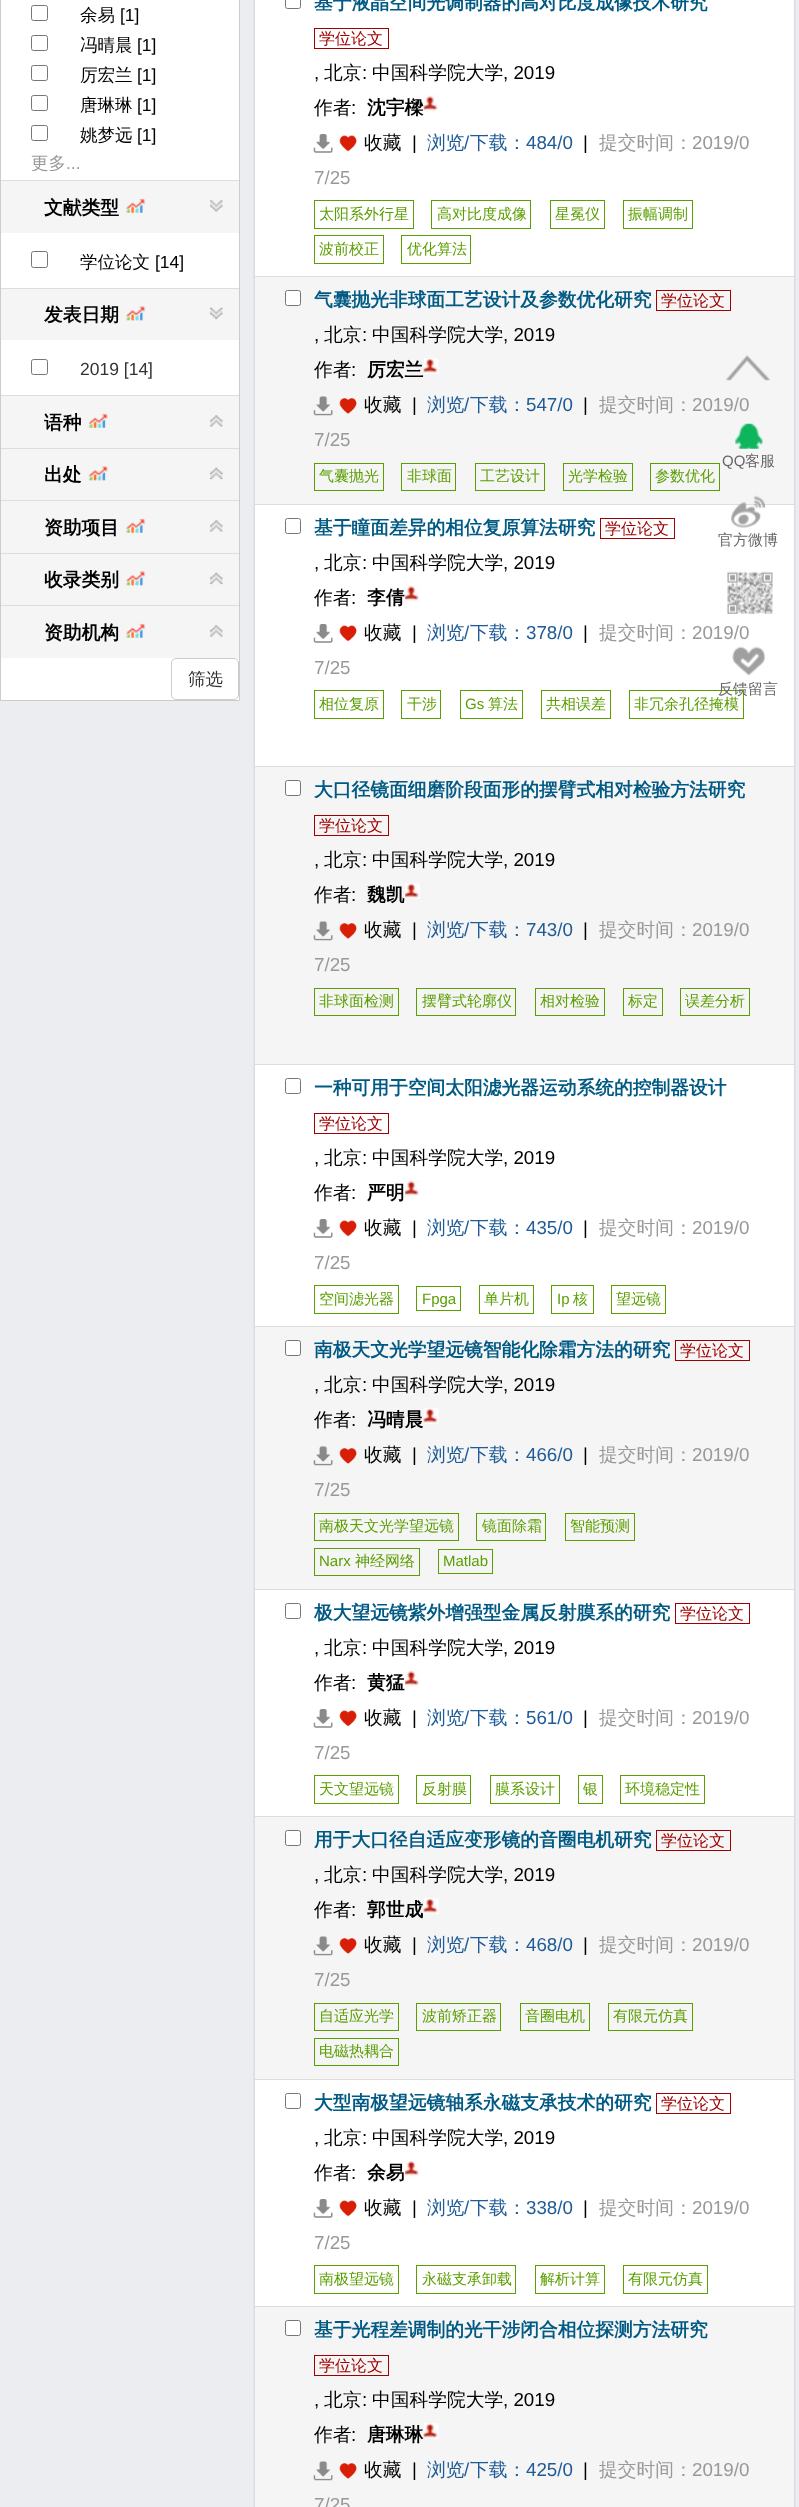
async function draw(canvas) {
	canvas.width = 799;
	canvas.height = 2507;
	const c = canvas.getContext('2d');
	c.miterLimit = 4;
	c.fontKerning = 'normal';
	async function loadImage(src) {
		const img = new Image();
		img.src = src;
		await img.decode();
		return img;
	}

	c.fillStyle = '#ecedf1';
	c.fillRect(0, 0, 799, 2507);
	c.fillStyle = '#fff';
	c.beginPath();
	c.rect(0.5, -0.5, 239, 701);
	c.fill();
	c.strokeStyle = '#ccc';
	c.stroke();
	c.beginPath();
	c.roundRect(31.5, 5.5, 16, 15, 2);
	c.strokeStyle = '#767676';
	c.stroke();
	c.font = '500 17.5px WenQuanYi Zen Hei';
	c.fillStyle = '#000';
	c.fillText('余易', 80, 21);
	c.font = '17.5px Liberation Sans';
	c.fillText('[1]', 120, 21);
	c.beginPath();
	c.roundRect(31.5, 35.5, 16, 15, 2);
	c.stroke();
	c.font = '500 17.5px WenQuanYi Zen Hei';
	c.fillText('冯晴晨', 80, 51);
	c.font = '17.5px Liberation Sans';
	c.fillText('[1]', 137, 51);
	c.beginPath();
	c.roundRect(31.5, 65.5, 16, 15, 2);
	c.stroke();
	c.font = '500 17.5px WenQuanYi Zen Hei';
	c.fillText('厉宏兰', 80, 81);
	c.font = '17.5px Liberation Sans';
	c.fillText('[1]', 137, 81);
	c.beginPath();
	c.roundRect(31.5, 95.5, 16, 15, 2);
	c.stroke();
	c.font = '500 17.5px WenQuanYi Zen Hei';
	c.fillText('唐琳琳', 80, 111);
	c.font = '17.5px Liberation Sans';
	c.fillText('[1]', 137, 111);
	c.beginPath();
	c.roundRect(31.5, 125.5, 16, 15, 2);
	c.stroke();
	c.font = '500 17.5px WenQuanYi Zen Hei';
	c.fillText('姚梦远', 80, 141);
	c.font = '17.5px Liberation Sans';
	c.fillText('[1]', 137, 141);
	c.font = '500 17.5px WenQuanYi Zen Hei';
	c.fillStyle = '#999';
	c.fillText('更多', 31, 169);
	c.font = '17.5px Liberation Sans';
	c.fillText('...', 66, 169);
	c.fillStyle = '#f5f5f5';
	c.fillRect(1, 181, 238, 52);
	c.fillStyle = '#ddd';
	c.fillRect(1, 180, 238, 1);
	c.font = 'bold 18.75px WenQuanYi Zen Hei';
	c.fillStyle = '#000';
	c.fillText('文献类型', 44, 214);
	c.drawImage(await loadImage('img1.png'), 126, 198, 20, 15);
	c.drawImage(await loadImage('img2.png'), 210, 200, 13, 12);
	c.beginPath();
	c.roundRect(31.5, 251.5, 16, 16, 2);
	c.stroke();
	c.font = '500 17.5px WenQuanYi Zen Hei';
	c.fillText('学位论文', 80, 268);
	c.font = '17.5px Liberation Sans';
	c.fillText('[14]', 155, 268);
	c.fillStyle = '#f5f5f5';
	c.fillRect(1, 289, 238, 51);
	c.fillStyle = '#ddd';
	c.fillRect(1, 288, 238, 1);
	c.font = 'bold 18.75px WenQuanYi Zen Hei';
	c.fillStyle = '#000';
	c.fillText('发表日期', 44, 321);
	c.drawImage(await loadImage('img3.png'), 126, 306, 20, 15);
	c.drawImage(await loadImage('img4.png'), 209, 307, 14, 13);
	c.beginPath();
	c.roundRect(31.5, 359.5, 16, 15, 2);
	c.stroke();
	c.font = '17.5px Liberation Sans';
	c.fillStyle = '#333';
	c.fillText('2019 [14]', 80, 375);
	c.fillStyle = '#f5f5f5';
	c.fillRect(1, 396, 238, 52);
	c.fillStyle = '#ddd';
	c.fillRect(1, 395, 238, 1);
	c.font = 'bold 18.75px WenQuanYi Zen Hei';
	c.fillStyle = '#000';
	c.fillText('语种', 44, 429);
	c.drawImage(await loadImage('img5.png'), 88, 413, 20, 15);
	c.drawImage(await loadImage('img6.png'), 209, 415, 14, 12);
	c.fillStyle = '#f5f5f5';
	c.fillRect(1, 449, 238, 51);
	c.fillStyle = '#ddd';
	c.fillRect(1, 448, 238, 1);
	c.fillStyle = '#000';
	c.fillText('出处', 44, 481);
	c.drawImage(await loadImage('img7.png'), 88, 466, 20, 15);
	c.drawImage(await loadImage('img8.png'), 209, 467, 14, 13);
	c.fillStyle = '#f5f5f5';
	c.fillRect(1, 501, 238, 52);
	c.fillStyle = '#ddd';
	c.fillRect(1, 500, 238, 1);
	c.fillStyle = '#000';
	c.fillText('资助项目', 44, 534);
	c.drawImage(await loadImage('img1.png'), 126, 518, 20, 15);
	c.drawImage(await loadImage('img6.png'), 209, 520, 14, 12);
	c.fillStyle = '#f5f5f5';
	c.fillRect(1, 554, 238, 51);
	c.fillStyle = '#ddd';
	c.fillRect(1, 553, 238, 1);
	c.fillStyle = '#000';
	c.fillText('收录类别', 44, 586);
	c.drawImage(await loadImage('img3.png'), 126, 571, 20, 15);
	c.drawImage(await loadImage('img8.png'), 209, 572, 14, 13);
	c.fillStyle = '#f5f5f5';
	c.fillRect(1, 606, 238, 52);
	c.fillStyle = '#ddd';
	c.fillRect(1, 605, 238, 1);
	c.fillStyle = '#000';
	c.fillText('资助机构', 44, 639);
	c.drawImage(await loadImage('img1.png'), 126, 623, 20, 15);
	c.drawImage(await loadImage('img6.png'), 209, 625, 14, 12);
	c.beginPath();
	c.roundRect(171.5, 658.5, 67, 41, 4.5);
	c.strokeStyle = '#ccc';
	c.stroke();
	c.font = '500 17.5px WenQuanYi Zen Hei';
	c.fillStyle = '#333';
	c.fillText('筛选', 188, 685);
	c.fillStyle = '#fff';
	c.fillRect(255, 0, 539, 2306);
	c.strokeStyle = '#e3e3e3';
	c.strokeRect(253.5, -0.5, 542, 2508);
	c.beginPath();
	c.roundRect(285.5, -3.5, 15, 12, 2);
	c.strokeStyle = '#767676';
	c.stroke();
	c.font = 'bold 18.75px WenQuanYi Zen Hei';
	c.fillStyle = '#005a84';
	c.fillText('基于液晶空间光调制器的高对比度成像技术研究', 314, 9);
	c.strokeStyle = '#a00001';
	c.strokeRect(314.5, 28.5, 74, 20);
	c.font = '500 16px WenQuanYi Zen Hei';
	c.fillStyle = '#a00001';
	c.fillText('学位论文', 319, 44);
	c.font = '500 18.75px WenQuanYi Zen Hei';
	c.fillStyle = '#000';
	c.fillText('北京', 324, 79);
	c.font = '18.75px Liberation Sans';
	c.fillText(':', 362, 79);
	c.font = '500 18.75px WenQuanYi Zen Hei';
	c.fillText('中国科学院大学', 372, 79);
	c.font = '18.75px Liberation Sans';
	c.fillText(', 2019', 503, 79);
	c.fillText(',', 314, 79);
	c.font = '500 18.75px WenQuanYi Zen Hei';
	c.fillText('作者', 314, 114);
	c.font = '18.75px Liberation Sans';
	c.fillText(':', 351, 114);
	c.font = 'bold 18.75px WenQuanYi Zen Hei';
	c.fillText('沈宇樑', 367, 114);
	c.drawImage(await loadImage('img9.png'), 423, 95, 16, 17);
	c.drawImage(await loadImage('img10.png'), 313, 134, 20, 19);
	c.drawImage(await loadImage('img11.png'), 339, 135, 18, 17);
	c.font = '500 18.75px WenQuanYi Zen Hei';
	c.fillText('收藏', 364, 149);
	c.font = '18.75px Liberation Sans';
	c.fillText('|', 412, 149);
	c.font = '500 18.75px WenQuanYi Zen Hei';
	c.fillStyle = '#1f5b97';
	c.fillText('浏览', 427, 149);
	c.font = '18.75px Liberation Sans';
	c.fillText('/', 464, 149);
	c.font = '500 18.75px WenQuanYi Zen Hei';
	c.fillText('下载：', 470, 149);
	c.font = '18.75px Liberation Sans';
	c.fillText('484/0', 526, 149);
	c.fillStyle = '#000';
	c.fillText('|', 583, 149);
	c.font = '500 18.75px WenQuanYi Zen Hei';
	c.fillStyle = '#999';
	c.fillText('提交时间：', 599, 149);
	c.font = '18.75px Liberation Sans';
	c.fillText('2019/0', 692, 149);
	c.fillText('7/25', 314, 184);
	c.strokeStyle = '#5a9e01';
	c.strokeRect(314.5, 200.5, 99, 28);
	c.font = '500 15px WenQuanYi Zen Hei';
	c.fillStyle = '#5a9e01';
	c.fillText('太阳系外行星', 319, 219);
	c.strokeRect(431.5, 200.5, 99, 28);
	c.fillText('高对比度成像', 437, 219);
	c.strokeRect(550.5, 200.5, 54, 28);
	c.fillText('星冕仪', 555, 219);
	c.strokeRect(623.5, 200.5, 69, 28);
	c.fillText('振幅调制', 628, 219);
	c.strokeRect(314.5, 235.5, 69, 28);
	c.fillText('波前校正', 319, 254);
	c.strokeRect(401.5, 235.5, 69, 28);
	c.fillText('优化算法', 407, 254);
	for (const [x, y, w, h, color] of [
		[255, 277, 539, 227, '#f5f5f5'],
		[254, 276, 541, 1, '#ddd'],
		[254, 504, 541, 1, '#ddd'],
		[254, 766, 541, 1, '#ddd'],
		[254, 1064, 541, 1, '#ddd'],
		[254, 1326, 541, 1, '#ddd'],
		[254, 1589, 541, 1, '#ddd'],
		[254, 1816, 541, 1, '#ddd'],
		[254, 2079, 541, 1, '#ddd'],
		[254, 2306, 541, 1, '#ddd'],
		[794, 2306, 1, 201, '#ddd'],
		[794, 2079, 1, 229, '#ddd'],
		[794, 1816, 1, 264, '#ddd'],
		[794, 1589, 1, 229, '#ddd'],
		[794, 1326, 1, 264, '#ddd'],
		[794, 1064, 1, 264, '#ddd'],
		[794, 766, 1, 299, '#ddd'],
		[794, 504, 1, 264, '#ddd'],
		[794, 0, 1, 505, '#ddd'],
		[254, 2306, 1, 201, '#ddd'],
		[254, 2079, 1, 229, '#ddd'],
		[254, 1816, 1, 264, '#ddd'],
		[254, 1589, 1, 229, '#ddd'],
		[254, 1326, 1, 264, '#ddd'],
		[254, 1064, 1, 264, '#ddd'],
		[254, 766, 1, 299, '#ddd'],
		[254, 504, 1, 264, '#ddd'],
		[254, 0, 1, 505, '#ddd'],
	]) {
		c.fillStyle = color;
		c.fillRect(x, y, w, h);
	}
	c.fillStyle = '#fff';
	c.beginPath();
	c.roundRect(285.5, 290.5, 15, 15, 2);
	c.fill();
	c.strokeStyle = '#767676';
	c.stroke();
	c.font = 'bold 18.75px WenQuanYi Zen Hei';
	c.fillStyle = '#005a84';
	c.fillText('气囊抛光非球面工艺设计及参数优化研究', 314, 306);
	c.strokeStyle = '#a00001';
	c.strokeRect(656.5, 290.5, 74, 20);
	c.font = '500 16px WenQuanYi Zen Hei';
	c.fillStyle = '#a00001';
	c.fillText('学位论文', 661, 306);
	c.font = '500 18.75px WenQuanYi Zen Hei';
	c.fillStyle = '#000';
	c.fillText('北京', 324, 341);
	c.font = '18.75px Liberation Sans';
	c.fillText(':', 362, 341);
	c.font = '500 18.75px WenQuanYi Zen Hei';
	c.fillText('中国科学院大学', 372, 341);
	c.font = '18.75px Liberation Sans';
	c.fillText(', 2019', 503, 341);
	c.fillText(',', 314, 341);
	c.font = '500 18.75px WenQuanYi Zen Hei';
	c.fillText('作者', 314, 376);
	c.font = '18.75px Liberation Sans';
	c.fillText(':', 351, 376);
	c.font = 'bold 18.75px WenQuanYi Zen Hei';
	c.fillText('厉宏兰', 367, 376);
	c.drawImage(await loadImage('img12.png'), 423, 358, 16, 16);
	c.drawImage(await loadImage('img13.png'), 313, 396, 20, 20);
	c.drawImage(await loadImage('img14.png'), 339, 398, 18, 16);
	c.font = '500 18.75px WenQuanYi Zen Hei';
	c.fillText('收藏', 364, 411);
	c.font = '18.75px Liberation Sans';
	c.fillText('|', 412, 411);
	c.font = '500 18.75px WenQuanYi Zen Hei';
	c.fillStyle = '#1f5b97';
	c.fillText('浏览', 427, 411);
	c.font = '18.75px Liberation Sans';
	c.fillText('/', 464, 411);
	c.font = '500 18.75px WenQuanYi Zen Hei';
	c.fillText('下载：', 470, 411);
	c.font = '18.75px Liberation Sans';
	c.fillText('547/0', 526, 411);
	c.fillStyle = '#000';
	c.fillText('|', 583, 411);
	c.font = '500 18.75px WenQuanYi Zen Hei';
	c.fillStyle = '#999';
	c.fillText('提交时间：', 599, 411);
	c.font = '18.75px Liberation Sans';
	c.fillText('2019/0', 692, 411);
	c.fillText('7/25', 314, 446);
	c.strokeStyle = '#5a9e01';
	c.strokeRect(314.5, 463.5, 69, 27);
	c.font = '500 15px WenQuanYi Zen Hei';
	c.fillStyle = '#5a9e01';
	c.fillText('气囊抛光', 319, 481);
	c.strokeRect(401.5, 463.5, 54, 27);
	c.fillText('非球面', 407, 481);
	c.strokeRect(475.5, 463.5, 69, 27);
	c.fillText('工艺设计', 480, 481);
	c.strokeRect(563.5, 463.5, 69, 27);
	c.fillText('光学检验', 568, 481);
	c.strokeRect(650.5, 463.5, 69, 27);
	c.fillText('参数优化', 655, 481);
	c.beginPath();
	c.roundRect(285.5, 518.5, 15, 15, 2);
	c.strokeStyle = '#767676';
	c.stroke();
	c.font = 'bold 18.75px WenQuanYi Zen Hei';
	c.fillStyle = '#005a84';
	c.fillText('基于瞳面差异的相位复原算法研究', 314, 534);
	c.strokeStyle = '#a00001';
	c.strokeRect(600.5, 518.5, 74, 20);
	c.font = '500 16px WenQuanYi Zen Hei';
	c.fillStyle = '#a00001';
	c.fillText('学位论文', 605, 534);
	c.font = '500 18.75px WenQuanYi Zen Hei';
	c.fillStyle = '#000';
	c.fillText('北京', 324, 569);
	c.font = '18.75px Liberation Sans';
	c.fillText(':', 362, 569);
	c.font = '500 18.75px WenQuanYi Zen Hei';
	c.fillText('中国科学院大学', 372, 569);
	c.font = '18.75px Liberation Sans';
	c.fillText(', 2019', 503, 569);
	c.fillText(',', 314, 569);
	c.font = '500 18.75px WenQuanYi Zen Hei';
	c.fillText('作者', 314, 604);
	c.font = '18.75px Liberation Sans';
	c.fillText(':', 351, 604);
	c.font = 'bold 18.75px WenQuanYi Zen Hei';
	c.fillText('李倩', 367, 604);
	c.drawImage(await loadImage('img15.png'), 405, 585, 15, 17);
	c.drawImage(await loadImage('img10.png'), 313, 624, 20, 19);
	c.drawImage(await loadImage('img11.png'), 339, 625, 18, 17);
	c.font = '500 18.75px WenQuanYi Zen Hei';
	c.fillText('收藏', 364, 639);
	c.font = '18.75px Liberation Sans';
	c.fillText('|', 412, 639);
	c.font = '500 18.75px WenQuanYi Zen Hei';
	c.fillStyle = '#1f5b97';
	c.fillText('浏览', 427, 639);
	c.font = '18.75px Liberation Sans';
	c.fillText('/', 464, 639);
	c.font = '500 18.75px WenQuanYi Zen Hei';
	c.fillText('下载：', 470, 639);
	c.font = '18.75px Liberation Sans';
	c.fillText('378/0', 526, 639);
	c.fillStyle = '#000';
	c.fillText('|', 583, 639);
	c.font = '500 18.75px WenQuanYi Zen Hei';
	c.fillStyle = '#999';
	c.fillText('提交时间：', 599, 639);
	c.font = '18.75px Liberation Sans';
	c.fillText('2019/0', 692, 639);
	c.fillText('7/25', 314, 674);
	c.strokeStyle = '#5a9e01';
	c.strokeRect(314.5, 690.5, 69, 28);
	c.font = '500 15px WenQuanYi Zen Hei';
	c.fillStyle = '#5a9e01';
	c.fillText('相位复原', 319, 709);
	c.strokeRect(401.5, 690.5, 39, 28);
	c.fillText('干涉', 407, 709);
	c.strokeRect(460.5, 690.5, 62, 28);
	c.font = '15px Liberation Sans';
	c.fillText('Gs', 465, 709);
	c.font = '500 15px WenQuanYi Zen Hei';
	c.fillText('算法', 488, 709);
	c.strokeRect(541.5, 690.5, 69, 28);
	c.fillText('共相误差', 546, 709);
	c.strokeRect(629.5, 690.5, 114, 28);
	c.fillText('非冗余孔径掩模', 634, 709);
	c.fillStyle = '#f5f5f5';
	c.fillRect(255, 767, 539, 297);
	c.fillStyle = '#fff';
	c.beginPath();
	c.roundRect(285.5, 780.5, 15, 15, 2);
	c.fill();
	c.strokeStyle = '#767676';
	c.stroke();
	c.font = 'bold 18.75px WenQuanYi Zen Hei';
	c.fillStyle = '#005a84';
	c.fillText('大口径镜面细磨阶段面形的摆臂式相对检验方法研究', 314, 796);
	c.strokeStyle = '#a00001';
	c.strokeRect(314.5, 815.5, 74, 20);
	c.font = '500 16px WenQuanYi Zen Hei';
	c.fillStyle = '#a00001';
	c.fillText('学位论文', 319, 831);
	c.font = '500 18.75px WenQuanYi Zen Hei';
	c.fillStyle = '#000';
	c.fillText('北京', 324, 866);
	c.font = '18.75px Liberation Sans';
	c.fillText(':', 362, 866);
	c.font = '500 18.75px WenQuanYi Zen Hei';
	c.fillText('中国科学院大学', 372, 866);
	c.font = '18.75px Liberation Sans';
	c.fillText(', 2019', 503, 866);
	c.fillText(',', 314, 866);
	c.font = '500 18.75px WenQuanYi Zen Hei';
	c.fillText('作者', 314, 901);
	c.font = '18.75px Liberation Sans';
	c.fillText(':', 351, 901);
	c.font = 'bold 18.75px WenQuanYi Zen Hei';
	c.fillText('魏凯', 367, 901);
	c.drawImage(await loadImage('img16.png'), 405, 883, 15, 16);
	c.drawImage(await loadImage('img13.png'), 313, 921, 20, 20);
	c.drawImage(await loadImage('img14.png'), 339, 923, 18, 16);
	c.font = '500 18.75px WenQuanYi Zen Hei';
	c.fillText('收藏', 364, 936);
	c.font = '18.75px Liberation Sans';
	c.fillText('|', 412, 936);
	c.font = '500 18.75px WenQuanYi Zen Hei';
	c.fillStyle = '#1f5b97';
	c.fillText('浏览', 427, 936);
	c.font = '18.75px Liberation Sans';
	c.fillText('/', 464, 936);
	c.font = '500 18.75px WenQuanYi Zen Hei';
	c.fillText('下载：', 470, 936);
	c.font = '18.75px Liberation Sans';
	c.fillText('743/0', 526, 936);
	c.fillStyle = '#000';
	c.fillText('|', 583, 936);
	c.font = '500 18.75px WenQuanYi Zen Hei';
	c.fillStyle = '#999';
	c.fillText('提交时间：', 599, 936);
	c.font = '18.75px Liberation Sans';
	c.fillText('2019/0', 692, 936);
	c.fillText('7/25', 314, 971);
	c.strokeStyle = '#5a9e01';
	c.strokeRect(314.5, 988.5, 84, 27);
	c.font = '500 15px WenQuanYi Zen Hei';
	c.fillStyle = '#5a9e01';
	c.fillText('非球面检测', 319, 1006);
	c.strokeRect(416.5, 988.5, 99, 27);
	c.fillText('摆臂式轮廓仪', 422, 1006);
	c.strokeRect(535.5, 988.5, 69, 27);
	c.fillText('相对检验', 540, 1006);
	c.strokeRect(623.5, 988.5, 39, 27);
	c.fillText('标定', 628, 1006);
	c.strokeRect(680.5, 988.5, 69, 27);
	c.fillText('误差分析', 685, 1006);
	c.beginPath();
	c.roundRect(285.5, 1078.5, 15, 15, 2);
	c.strokeStyle = '#767676';
	c.stroke();
	c.font = 'bold 18.75px WenQuanYi Zen Hei';
	c.fillStyle = '#005a84';
	c.fillText('一种可用于空间太阳滤光器运动系统的控制器设计', 314, 1094);
	c.strokeStyle = '#a00001';
	c.strokeRect(314.5, 1113.5, 74, 20);
	c.font = '500 16px WenQuanYi Zen Hei';
	c.fillStyle = '#a00001';
	c.fillText('学位论文', 319, 1129);
	c.font = '500 18.75px WenQuanYi Zen Hei';
	c.fillStyle = '#000';
	c.fillText('北京', 324, 1164);
	c.font = '18.75px Liberation Sans';
	c.fillText(':', 362, 1164);
	c.font = '500 18.75px WenQuanYi Zen Hei';
	c.fillText('中国科学院大学', 372, 1164);
	c.font = '18.75px Liberation Sans';
	c.fillText(', 2019', 503, 1164);
	c.fillText(',', 314, 1164);
	c.font = '500 18.75px WenQuanYi Zen Hei';
	c.fillText('作者', 314, 1199);
	c.font = '18.75px Liberation Sans';
	c.fillText(':', 351, 1199);
	c.font = 'bold 18.75px WenQuanYi Zen Hei';
	c.fillText('严明', 367, 1199);
	c.drawImage(await loadImage('img15.png'), 405, 1180, 15, 17);
	c.drawImage(await loadImage('img10.png'), 313, 1219, 20, 19);
	c.drawImage(await loadImage('img11.png'), 339, 1220, 18, 17);
	c.font = '500 18.75px WenQuanYi Zen Hei';
	c.fillText('收藏', 364, 1234);
	c.font = '18.75px Liberation Sans';
	c.fillText('|', 412, 1234);
	c.font = '500 18.75px WenQuanYi Zen Hei';
	c.fillStyle = '#1f5b97';
	c.fillText('浏览', 427, 1234);
	c.font = '18.75px Liberation Sans';
	c.fillText('/', 464, 1234);
	c.font = '500 18.75px WenQuanYi Zen Hei';
	c.fillText('下载：', 470, 1234);
	c.font = '18.75px Liberation Sans';
	c.fillText('435/0', 526, 1234);
	c.fillStyle = '#000';
	c.fillText('|', 583, 1234);
	c.font = '500 18.75px WenQuanYi Zen Hei';
	c.fillStyle = '#999';
	c.fillText('提交时间：', 599, 1234);
	c.font = '18.75px Liberation Sans';
	c.fillText('2019/0', 692, 1234);
	c.fillText('7/25', 314, 1269);
	c.strokeStyle = '#5a9e01';
	c.strokeRect(314.5, 1285.5, 84, 28);
	c.font = '500 15px WenQuanYi Zen Hei';
	c.fillStyle = '#5a9e01';
	c.fillText('空间滤光器', 319, 1304);
	c.strokeRect(416.5, 1286.5, 44, 24);
	c.font = '15px Liberation Sans';
	c.fillText('Fpga', 422, 1304);
	c.strokeRect(479.5, 1285.5, 54, 28);
	c.font = '500 15px WenQuanYi Zen Hei';
	c.fillText('单片机', 484, 1304);
	c.strokeRect(551.5, 1285.5, 42, 28);
	c.font = '15px Liberation Sans';
	c.fillText('Ip', 557, 1304);
	c.font = '500 15px WenQuanYi Zen Hei';
	c.fillText('核', 573, 1304);
	c.strokeRect(611.5, 1285.5, 54, 28);
	c.fillText('望远镜', 616, 1304);
	c.fillStyle = '#f5f5f5';
	c.fillRect(255, 1327, 539, 262);
	c.fillStyle = '#fff';
	c.beginPath();
	c.roundRect(285.5, 1340.5, 15, 15, 2);
	c.fill();
	c.strokeStyle = '#767676';
	c.stroke();
	c.font = 'bold 18.75px WenQuanYi Zen Hei';
	c.fillStyle = '#005a84';
	c.fillText('南极天文光学望远镜智能化除霜方法的研究', 314, 1356);
	c.strokeStyle = '#a00001';
	c.strokeRect(675.5, 1340.5, 74, 20);
	c.font = '500 16px WenQuanYi Zen Hei';
	c.fillStyle = '#a00001';
	c.fillText('学位论文', 680, 1356);
	c.font = '500 18.75px WenQuanYi Zen Hei';
	c.fillStyle = '#000';
	c.fillText('北京', 324, 1391);
	c.font = '18.75px Liberation Sans';
	c.fillText(':', 362, 1391);
	c.font = '500 18.75px WenQuanYi Zen Hei';
	c.fillText('中国科学院大学', 372, 1391);
	c.font = '18.75px Liberation Sans';
	c.fillText(', 2019', 503, 1391);
	c.fillText(',', 314, 1391);
	c.font = '500 18.75px WenQuanYi Zen Hei';
	c.fillText('作者', 314, 1426);
	c.font = '18.75px Liberation Sans';
	c.fillText(':', 351, 1426);
	c.font = 'bold 18.75px WenQuanYi Zen Hei';
	c.fillText('冯晴晨', 367, 1426);
	c.drawImage(await loadImage('img12.png'), 423, 1408, 16, 16);
	c.drawImage(await loadImage('img13.png'), 313, 1446, 20, 20);
	c.drawImage(await loadImage('img14.png'), 339, 1448, 18, 16);
	c.font = '500 18.75px WenQuanYi Zen Hei';
	c.fillText('收藏', 364, 1461);
	c.font = '18.75px Liberation Sans';
	c.fillText('|', 412, 1461);
	c.font = '500 18.75px WenQuanYi Zen Hei';
	c.fillStyle = '#1f5b97';
	c.fillText('浏览', 427, 1461);
	c.font = '18.75px Liberation Sans';
	c.fillText('/', 464, 1461);
	c.font = '500 18.75px WenQuanYi Zen Hei';
	c.fillText('下载：', 470, 1461);
	c.font = '18.75px Liberation Sans';
	c.fillText('466/0', 526, 1461);
	c.fillStyle = '#000';
	c.fillText('|', 583, 1461);
	c.font = '500 18.75px WenQuanYi Zen Hei';
	c.fillStyle = '#999';
	c.fillText('提交时间：', 599, 1461);
	c.font = '18.75px Liberation Sans';
	c.fillText('2019/0', 692, 1461);
	c.fillText('7/25', 314, 1496);
	c.strokeStyle = '#5a9e01';
	c.strokeRect(314.5, 1513.5, 144, 27);
	c.font = '500 15px WenQuanYi Zen Hei';
	c.fillStyle = '#5a9e01';
	c.fillText('南极天文光学望远镜', 319, 1531);
	c.strokeRect(476.5, 1513.5, 69, 27);
	c.fillText('镜面除霜', 482, 1531);
	c.strokeRect(565.5, 1513.5, 69, 27);
	c.fillText('智能预测', 570, 1531);
	c.strokeRect(314.5, 1548.5, 105, 27);
	c.font = '15px Liberation Sans';
	c.fillText('Narx', 319, 1566);
	c.font = '500 15px WenQuanYi Zen Hei';
	c.fillText('神经网络', 355, 1566);
	c.strokeRect(438.5, 1549.5, 54, 24);
	c.font = '15px Liberation Sans';
	c.fillText('Matlab', 443, 1566);
	c.beginPath();
	c.roundRect(285.5, 1603.5, 15, 15, 2);
	c.strokeStyle = '#767676';
	c.stroke();
	c.font = 'bold 18.75px WenQuanYi Zen Hei';
	c.fillStyle = '#005a84';
	c.fillText('极大望远镜紫外增强型金属反射膜系的研究', 314, 1619);
	c.strokeStyle = '#a00001';
	c.strokeRect(675.5, 1603.5, 74, 20);
	c.font = '500 16px WenQuanYi Zen Hei';
	c.fillStyle = '#a00001';
	c.fillText('学位论文', 680, 1619);
	c.font = '500 18.75px WenQuanYi Zen Hei';
	c.fillStyle = '#000';
	c.fillText('北京', 324, 1654);
	c.font = '18.75px Liberation Sans';
	c.fillText(':', 362, 1654);
	c.font = '500 18.75px WenQuanYi Zen Hei';
	c.fillText('中国科学院大学', 372, 1654);
	c.font = '18.75px Liberation Sans';
	c.fillText(', 2019', 503, 1654);
	c.fillText(',', 314, 1654);
	c.font = '500 18.75px WenQuanYi Zen Hei';
	c.fillText('作者', 314, 1689);
	c.font = '18.75px Liberation Sans';
	c.fillText(':', 351, 1689);
	c.font = 'bold 18.75px WenQuanYi Zen Hei';
	c.fillText('黄猛', 367, 1689);
	c.drawImage(await loadImage('img15.png'), 405, 1670, 15, 17);
	c.drawImage(await loadImage('img10.png'), 313, 1709, 20, 19);
	c.drawImage(await loadImage('img11.png'), 339, 1710, 18, 17);
	c.font = '500 18.75px WenQuanYi Zen Hei';
	c.fillText('收藏', 364, 1724);
	c.font = '18.75px Liberation Sans';
	c.fillText('|', 412, 1724);
	c.font = '500 18.75px WenQuanYi Zen Hei';
	c.fillStyle = '#1f5b97';
	c.fillText('浏览', 427, 1724);
	c.font = '18.75px Liberation Sans';
	c.fillText('/', 464, 1724);
	c.font = '500 18.75px WenQuanYi Zen Hei';
	c.fillText('下载：', 470, 1724);
	c.font = '18.75px Liberation Sans';
	c.fillText('561/0', 526, 1724);
	c.fillStyle = '#000';
	c.fillText('|', 583, 1724);
	c.font = '500 18.75px WenQuanYi Zen Hei';
	c.fillStyle = '#999';
	c.fillText('提交时间：', 599, 1724);
	c.font = '18.75px Liberation Sans';
	c.fillText('2019/0', 692, 1724);
	c.fillText('7/25', 314, 1759);
	c.strokeStyle = '#5a9e01';
	c.strokeRect(314.5, 1775.5, 84, 28);
	c.font = '500 15px WenQuanYi Zen Hei';
	c.fillStyle = '#5a9e01';
	c.fillText('天文望远镜', 319, 1794);
	c.strokeRect(416.5, 1775.5, 54, 28);
	c.fillText('反射膜', 422, 1794);
	c.strokeRect(490.5, 1775.5, 69, 28);
	c.fillText('膜系设计', 495, 1794);
	c.strokeRect(578.5, 1775.5, 24, 28);
	c.fillText('银', 583, 1794);
	c.strokeRect(620.5, 1775.5, 84, 28);
	c.fillText('环境稳定性', 625, 1794);
	c.fillStyle = '#f5f5f5';
	c.fillRect(255, 1817, 539, 262);
	c.fillStyle = '#fff';
	c.beginPath();
	c.roundRect(285.5, 1830.5, 15, 15, 2);
	c.fill();
	c.strokeStyle = '#767676';
	c.stroke();
	c.font = 'bold 18.75px WenQuanYi Zen Hei';
	c.fillStyle = '#005a84';
	c.fillText('用于大口径自适应变形镜的音圈电机研究', 314, 1846);
	c.strokeStyle = '#a00001';
	c.strokeRect(656.5, 1830.5, 74, 20);
	c.font = '500 16px WenQuanYi Zen Hei';
	c.fillStyle = '#a00001';
	c.fillText('学位论文', 661, 1846);
	c.font = '500 18.75px WenQuanYi Zen Hei';
	c.fillStyle = '#000';
	c.fillText('北京', 324, 1881);
	c.font = '18.75px Liberation Sans';
	c.fillText(':', 362, 1881);
	c.font = '500 18.75px WenQuanYi Zen Hei';
	c.fillText('中国科学院大学', 372, 1881);
	c.font = '18.75px Liberation Sans';
	c.fillText(', 2019', 503, 1881);
	c.fillText(',', 314, 1881);
	c.font = '500 18.75px WenQuanYi Zen Hei';
	c.fillText('作者', 314, 1916);
	c.font = '18.75px Liberation Sans';
	c.fillText(':', 351, 1916);
	c.font = 'bold 18.75px WenQuanYi Zen Hei';
	c.fillText('郭世成', 367, 1916);
	c.drawImage(await loadImage('img12.png'), 423, 1898, 16, 16);
	c.drawImage(await loadImage('img13.png'), 313, 1936, 20, 20);
	c.drawImage(await loadImage('img14.png'), 339, 1938, 18, 16);
	c.font = '500 18.75px WenQuanYi Zen Hei';
	c.fillText('收藏', 364, 1951);
	c.font = '18.75px Liberation Sans';
	c.fillText('|', 412, 1951);
	c.font = '500 18.75px WenQuanYi Zen Hei';
	c.fillStyle = '#1f5b97';
	c.fillText('浏览', 427, 1951);
	c.font = '18.75px Liberation Sans';
	c.fillText('/', 464, 1951);
	c.font = '500 18.75px WenQuanYi Zen Hei';
	c.fillText('下载：', 470, 1951);
	c.font = '18.75px Liberation Sans';
	c.fillText('468/0', 526, 1951);
	c.fillStyle = '#000';
	c.fillText('|', 583, 1951);
	c.font = '500 18.75px WenQuanYi Zen Hei';
	c.fillStyle = '#999';
	c.fillText('提交时间：', 599, 1951);
	c.font = '18.75px Liberation Sans';
	c.fillText('2019/0', 692, 1951);
	c.fillText('7/25', 314, 1986);
	c.strokeStyle = '#5a9e01';
	c.strokeRect(314.5, 2003.5, 84, 27);
	c.font = '500 15px WenQuanYi Zen Hei';
	c.fillStyle = '#5a9e01';
	c.fillText('自适应光学', 319, 2021);
	c.strokeRect(416.5, 2003.5, 84, 27);
	c.fillText('波前矫正器', 422, 2021);
	c.strokeRect(520.5, 2003.5, 69, 27);
	c.fillText('音圈电机', 525, 2021);
	c.strokeRect(608.5, 2003.5, 84, 27);
	c.fillText('有限元仿真', 613, 2021);
	c.strokeRect(314.5, 2038.5, 84, 27);
	c.fillText('电磁热耦合', 319, 2056);
	c.beginPath();
	c.roundRect(285.5, 2093.5, 15, 15, 2);
	c.strokeStyle = '#767676';
	c.stroke();
	c.font = 'bold 18.75px WenQuanYi Zen Hei';
	c.fillStyle = '#005a84';
	c.fillText('大型南极望远镜轴系永磁支承技术的研究', 314, 2109);
	c.strokeStyle = '#a00001';
	c.strokeRect(656.5, 2093.5, 74, 20);
	c.font = '500 16px WenQuanYi Zen Hei';
	c.fillStyle = '#a00001';
	c.fillText('学位论文', 661, 2109);
	c.font = '500 18.75px WenQuanYi Zen Hei';
	c.fillStyle = '#000';
	c.fillText('北京', 324, 2144);
	c.font = '18.75px Liberation Sans';
	c.fillText(':', 362, 2144);
	c.font = '500 18.75px WenQuanYi Zen Hei';
	c.fillText('中国科学院大学', 372, 2144);
	c.font = '18.75px Liberation Sans';
	c.fillText(', 2019', 503, 2144);
	c.fillText(',', 314, 2144);
	c.font = '500 18.75px WenQuanYi Zen Hei';
	c.fillText('作者', 314, 2179);
	c.font = '18.75px Liberation Sans';
	c.fillText(':', 351, 2179);
	c.font = 'bold 18.75px WenQuanYi Zen Hei';
	c.fillText('余易', 367, 2179);
	c.drawImage(await loadImage('img15.png'), 405, 2160, 15, 17);
	c.drawImage(await loadImage('img10.png'), 313, 2199, 20, 19);
	c.drawImage(await loadImage('img11.png'), 339, 2200, 18, 17);
	c.font = '500 18.75px WenQuanYi Zen Hei';
	c.fillText('收藏', 364, 2214);
	c.font = '18.75px Liberation Sans';
	c.fillText('|', 412, 2214);
	c.font = '500 18.75px WenQuanYi Zen Hei';
	c.fillStyle = '#1f5b97';
	c.fillText('浏览', 427, 2214);
	c.font = '18.75px Liberation Sans';
	c.fillText('/', 464, 2214);
	c.font = '500 18.75px WenQuanYi Zen Hei';
	c.fillText('下载：', 470, 2214);
	c.font = '18.75px Liberation Sans';
	c.fillText('338/0', 526, 2214);
	c.fillStyle = '#000';
	c.fillText('|', 583, 2214);
	c.font = '500 18.75px WenQuanYi Zen Hei';
	c.fillStyle = '#999';
	c.fillText('提交时间：', 599, 2214);
	c.font = '18.75px Liberation Sans';
	c.fillText('2019/0', 692, 2214);
	c.fillText('7/25', 314, 2249);
	c.strokeStyle = '#5a9e01';
	c.strokeRect(314.5, 2265.5, 84, 28);
	c.font = '500 15px WenQuanYi Zen Hei';
	c.fillStyle = '#5a9e01';
	c.fillText('南极望远镜', 319, 2284);
	c.strokeRect(416.5, 2265.5, 99, 28);
	c.fillText('永磁支承卸载', 422, 2284);
	c.strokeRect(535.5, 2265.5, 69, 28);
	c.fillText('解析计算', 540, 2284);
	c.strokeRect(623.5, 2265.5, 84, 28);
	c.fillText('有限元仿真', 628, 2284);
	c.fillStyle = '#f5f5f5';
	c.fillRect(255, 2307, 539, 200);
	c.fillStyle = '#fff';
	c.beginPath();
	c.roundRect(285.5, 2320.5, 15, 15, 2);
	c.fill();
	c.strokeStyle = '#767676';
	c.stroke();
	c.font = 'bold 18.75px WenQuanYi Zen Hei';
	c.fillStyle = '#005a84';
	c.fillText('基于光程差调制的光干涉闭合相位探测方法研究', 314, 2336);
	c.strokeStyle = '#a00001';
	c.strokeRect(314.5, 2355.5, 74, 20);
	c.font = '500 16px WenQuanYi Zen Hei';
	c.fillStyle = '#a00001';
	c.fillText('学位论文', 319, 2371);
	c.font = '500 18.75px WenQuanYi Zen Hei';
	c.fillStyle = '#000';
	c.fillText('北京', 324, 2406);
	c.font = '18.75px Liberation Sans';
	c.fillText(':', 362, 2406);
	c.font = '500 18.75px WenQuanYi Zen Hei';
	c.fillText('中国科学院大学', 372, 2406);
	c.font = '18.75px Liberation Sans';
	c.fillText(', 2019', 503, 2406);
	c.fillText(',', 314, 2406);
	c.font = '500 18.75px WenQuanYi Zen Hei';
	c.fillText('作者', 314, 2441);
	c.font = '18.75px Liberation Sans';
	c.fillText(':', 351, 2441);
	c.font = 'bold 18.75px WenQuanYi Zen Hei';
	c.fillText('唐琳琳', 367, 2441);
	c.drawImage(await loadImage('img12.png'), 423, 2423, 16, 16);
	c.drawImage(await loadImage('img13.png'), 313, 2461, 20, 20);
	c.drawImage(await loadImage('img14.png'), 339, 2463, 18, 16);
	c.font = '500 18.75px WenQuanYi Zen Hei';
	c.fillText('收藏', 364, 2476);
	c.font = '18.75px Liberation Sans';
	c.fillText('|', 412, 2476);
	c.font = '500 18.75px WenQuanYi Zen Hei';
	c.fillStyle = '#1f5b97';
	c.fillText('浏览', 427, 2476);
	c.font = '18.75px Liberation Sans';
	c.fillText('/', 464, 2476);
	c.font = '500 18.75px WenQuanYi Zen Hei';
	c.fillText('下载：', 470, 2476);
	c.font = '18.75px Liberation Sans';
	c.fillText('425/0', 526, 2476);
	c.fillStyle = '#000';
	c.fillText('|', 583, 2476);
	c.font = '500 18.75px WenQuanYi Zen Hei';
	c.fillStyle = '#999';
	c.fillText('提交时间：', 599, 2476);
	c.font = '18.75px Liberation Sans';
	c.fillText('2019/0', 692, 2476);
	c.fillText('7/25', 314, 2511);
	c.drawImage(await loadImage('img17.png'), 726, 355, 44, 26);
	c.drawImage(await loadImage('img18.png'), 735, 423, 28, 26);
	c.font = '15px Liberation Sans';
	c.fillStyle = '#676767';
	c.fillText('QQ', 722, 466);
	c.font = '500 15px WenQuanYi Zen Hei';
	c.fillText('客服', 745, 466);
	c.drawImage(await loadImage('img19.png'), 731, 495, 34, 33);
	c.fillText('官方微博', 718, 545);
	c.drawImage(await loadImage('img20.png'), 727, 571, 46, 43);
	c.drawImage(await loadImage('img21.png'), 732, 646, 33, 30);
	c.fillText('反馈留言', 718, 694);
}

draw(document.querySelector('canvas'));
